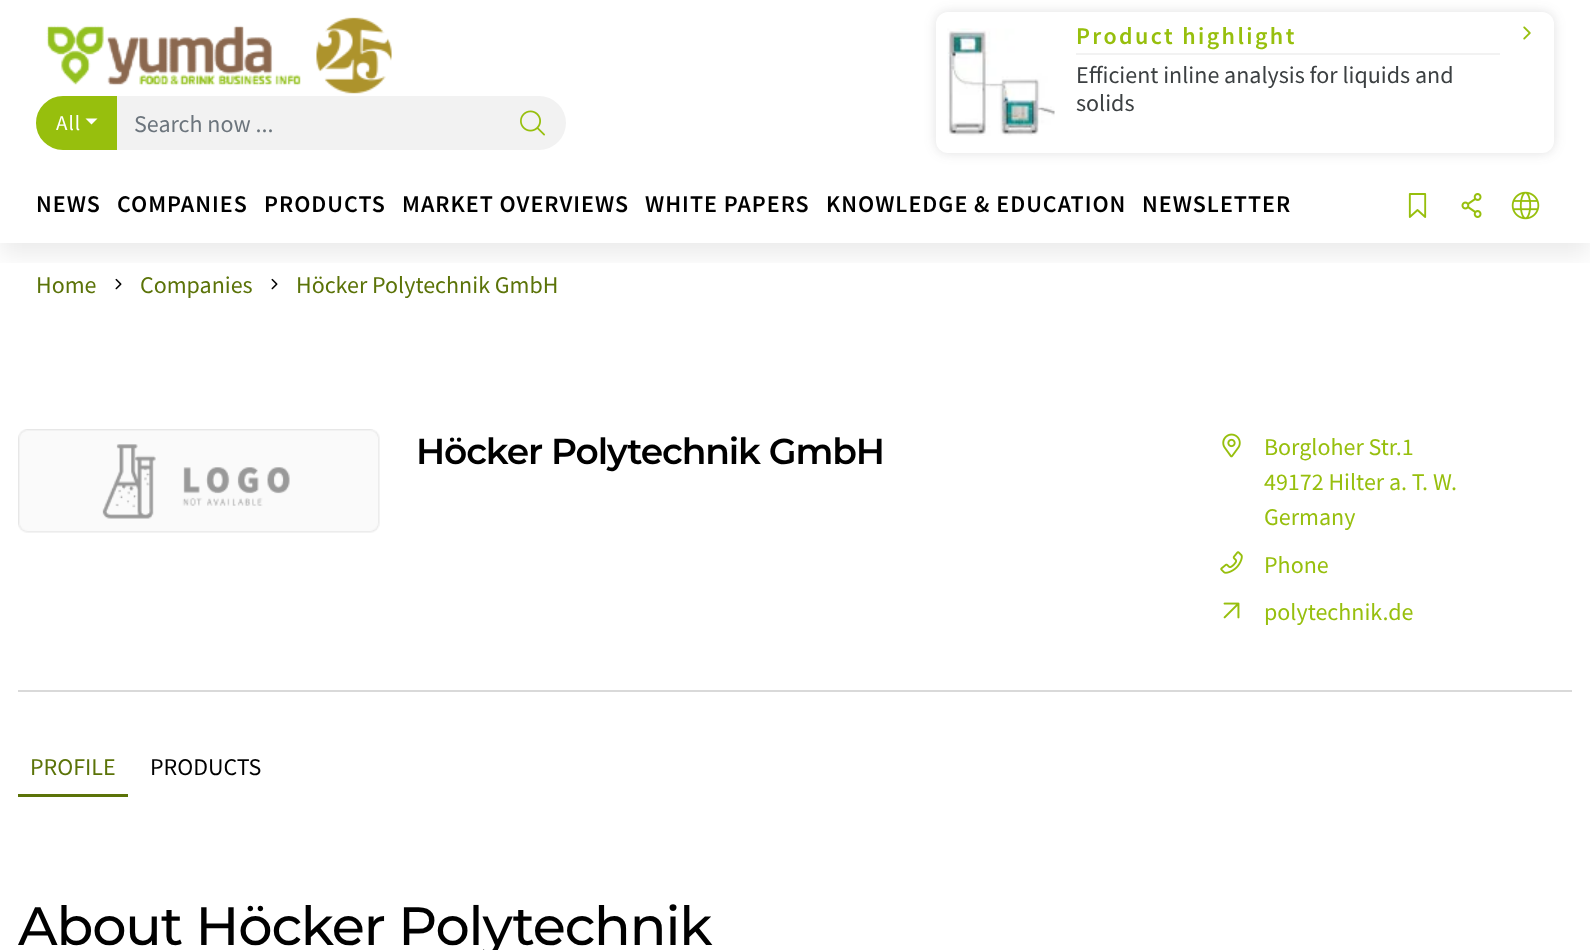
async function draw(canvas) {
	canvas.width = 1590;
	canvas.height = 950;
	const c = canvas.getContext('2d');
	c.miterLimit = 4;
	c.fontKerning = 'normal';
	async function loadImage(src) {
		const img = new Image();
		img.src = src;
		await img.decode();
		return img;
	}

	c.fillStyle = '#fff';
	c.fillRect(0, 0, 1590, 950);
	c.drawImage(await loadImage('img8.png'), 115, 278, 7, 12);
	c.drawImage(await loadImage('img8.png'), 271, 278, 7, 12);
	c.save();
	c.beginPath();
	c.rect(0, 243, 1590, 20);
	c.clip();
	c.fillStyle = '#00000014';
	c.filter = 'blur(12px)';
	c.beginPath();
	c.rect(0, 12, 1590, 243);
	c.fill();
	c.filter = 'none';
	c.restore();
	c.fillStyle = '#3c404229';
	c.filter = 'blur(6px)';
	c.beginPath();
	c.roundRect(936, 12, 618, 141, 12);
	c.fill();
	c.filter = 'none';
	c.fillStyle = '#fff';
	c.beginPath();
	c.roundRect(936, 12, 618, 141, 12);
	c.fill();
	c.drawImage(await loadImage('img1.png'), 947, 28, 108, 108);
	c.fillStyle = '#f2f2f2';
	c.fillRect(1076, 53, 424, 2);
	c.letterSpacing = '2.4px';
	c.font = '600 24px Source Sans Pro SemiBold';
	c.fillStyle = '#97bf0d';
	c.fillText('Product highlight', 1076, 44);
	c.letterSpacing = '0px';
	c.font = '24px Source Sans Pro';
	c.fillStyle = '#3c4042';
	c.fillText('Efficient inline analysis for liquids and', 1076, 83);
	c.fillText('solids', 1076, 111);
	c.drawImage(await loadImage('img2.png'), 1523, 26, 8, 14);
	c.drawImage(await loadImage('img3.png'), 46, 17, 346, 77);
	c.fillStyle = '#f2f2f2';
	c.beginPath();
	c.roundRect(116, 96, 450, 54, [0, 27, 27, 0]);
	c.fill();
	c.fillStyle = '#97bf0d';
	c.beginPath();
	c.roundRect(37, 97, 79, 52, [26, 0, 0, 26]);
	c.fill();
	c.strokeStyle = '#97bf0d';
	c.lineWidth = 2;
	c.stroke();
	c.letterSpacing = '1px';
	c.font = '21px Source Sans Pro';
	c.fillStyle = '#fff';
	c.fillText('All', 56, 130);
	c.beginPath();
	c.moveTo(85.5, 118.5);
	c.lineTo(97.5, 118.5);
	c.lineTo(91.5, 124.5);
	c.closePath();
	c.fill();
	c.letterSpacing = '0px';
	c.font = '24px Source Sans Pro';
	c.fillStyle = '#6c757d';
	c.fillText('Search now ...', 134, 132);
	c.drawImage(await loadImage('img4.png'), 520, 110, 25, 26);
	c.letterSpacing = '1px';
	c.font = '600 24px Source Sans Pro SemiBold';
	c.fillStyle = '#000';
	for (const [text, x, y] of [
		['NEWS', 36, 212],
		['COMPANIES', 117, 212],
		['PRODUCTS', 264, 212],
		['MARKET OVERVIEWS', 402, 212],
		['WHITE PAPERS', 645, 212],
		['KNOWLEDGE & EDUCATION', 826, 212],
		['NEWSLETTER', 1142, 212],
	]) {
		c.fillText(text, x, y);
	}
	c.drawImage(await loadImage('img5.png'), 1408, 193, 19, 25);
	c.drawImage(await loadImage('img6.png'), 1461, 193, 21, 25);
	c.drawImage(await loadImage('img7.png'), 1511, 191, 29, 29);
	c.letterSpacing = '0px';
	c.font = '24px Source Sans Pro';
	c.fillStyle = '#5b7308';
	for (const [text, x, y] of [
		['Home', 36, 293],
		['Companies', 140, 293],
		['Höcker Polytechnik GmbH', 296, 293],
	]) {
		c.fillText(text, x, y);
	}
	c.drawImage(await loadImage('img9.png'), 18, 429, 362, 104);
	c.letterSpacing = '-1.1px';
	c.font = '100 36px Montserrat';
	c.fillStyle = '#000';
	c.fillText('Höcker Polytechnik GmbH', 416, 464);
	c.drawImage(await loadImage('img10.png'), 1222, 433, 19, 25);
	c.letterSpacing = '0px';
	c.font = '24px Source Sans Pro';
	c.fillStyle = '#97bf0d';
	for (const [text, x, y] of [
		['Borgloher Str.1', 1264, 455],
		['49172 Hilter a. T. W.', 1264, 490],
		['Germany', 1264, 525],
	]) {
		c.fillText(text, x, y);
	}
	c.drawImage(await loadImage('img11.png'), 1220, 551, 23, 23);
	c.fillText('Phone', 1264, 573);
	c.drawImage(await loadImage('img12.png'), 1223, 602, 17, 17);
	c.fillText('polytechnik.de', 1264, 620);
	c.fillStyle = '#d9d9d9';
	c.fillRect(18, 690, 1554, 2);
	c.fillStyle = '#5b7308';
	c.fillRect(18, 794, 110, 3);
	c.fillText('PROFILE', 30, 775);
	c.fillStyle = '#000';
	c.fillText('PRODUCTS', 150, 775);
	c.letterSpacing = '-1.1px';
	c.font = '100 54px "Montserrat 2"';
	c.fillText('About Höcker Polytechnik', 18, 945);
}

draw(document.querySelector('canvas'));
